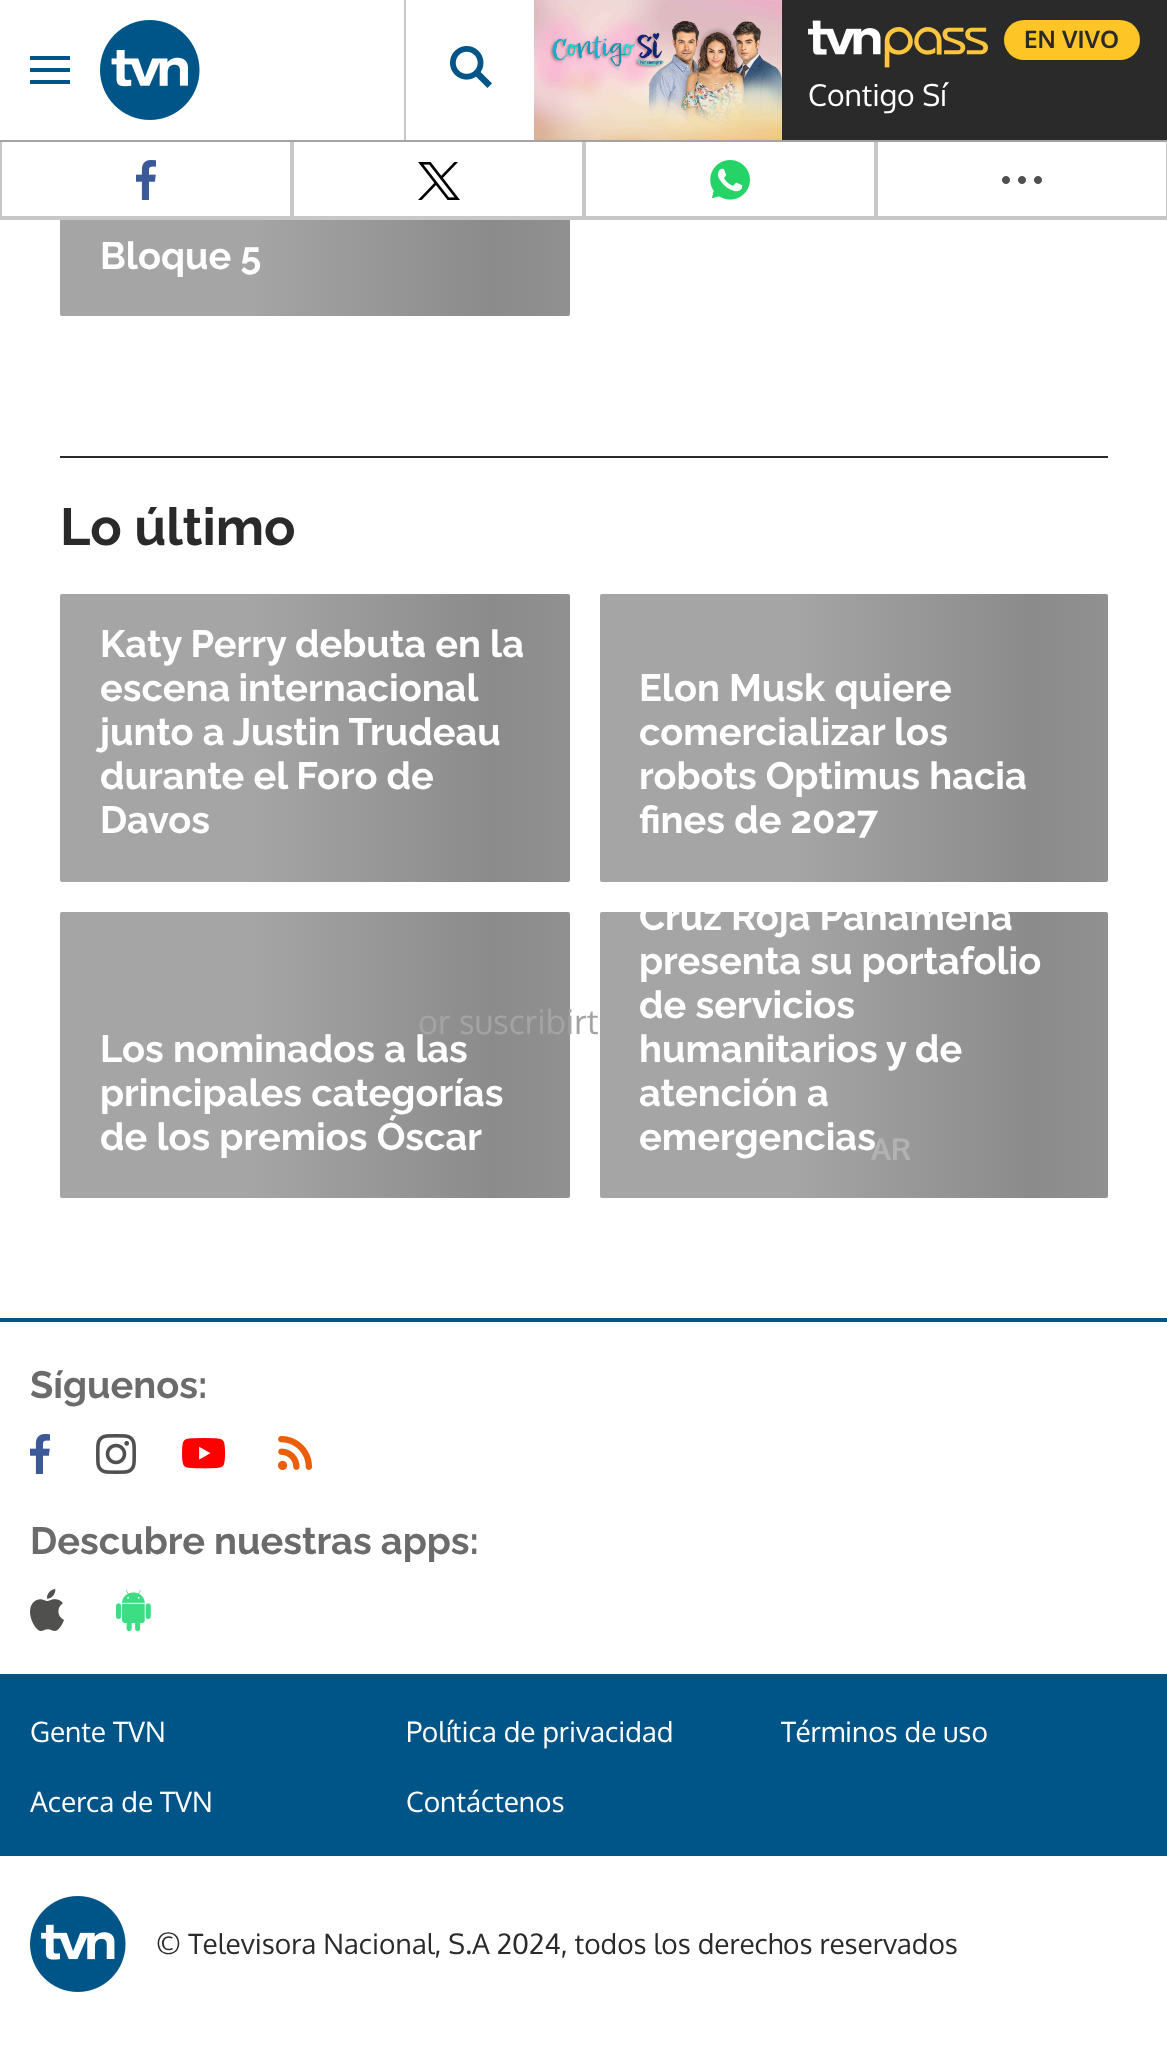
async function draw(canvas) {
	canvas.width = 1167;
	canvas.height = 2067;
	const c = canvas.getContext('2d');
	c.miterLimit = 4;
	c.fontKerning = 'normal';
	async function loadImage(src) {
		const img = new Image();
		img.src = src;
		await img.decode();
		return img;
	}
	let gradient;

	c.fillStyle = '#fff';
	c.fillRect(0, 0, 1167, 2067);
	gradient = c.createLinearGradient(60, 134, 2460, 134);
	gradient.addColorStop(0.08, '#a5a5a5');
	gradient.addColorStop(0.18, '#8b8b8b');
	gradient.addColorStop(0.33, '#a5a5a5');
	c.fillStyle = gradient;
	c.beginPath();
	c.roundRect(60, 30, 510, 286, 2);
	c.fill();
	c.fillStyle = '#fff';
	c.fillRect(60, 142, 510, 74);
	c.fillStyle = '#c7c7c7';
	c.fillRect(0, 216, 1167, 2);
	c.strokeStyle = '#c7c7c7';
	c.lineWidth = 2;
	c.strokeRect(1, 141, 290, 78);
	c.strokeRect(293, 141, 290, 78);
	c.strokeRect(585, 141, 290, 78);
	c.strokeRect(877, 141, 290, 78);
	for (const [x, y, w, h, color] of [
		[0, 140, 1167, 2, '#a3a3a3'],
		[60, 30, 474, 110, '#fff'],
		[30, 56, 40, 4, '#058'],
		[30, 68, 40, 4, '#058'],
		[30, 80, 40, 4, '#058'],
	]) {
		c.fillStyle = color;
		c.fillRect(x, y, w, h);
	}
	c.drawImage(await loadImage('img1.png'), 100, 20, 100, 100);
	c.fillStyle = '#c7c7c7';
	c.fillRect(404, 0, 2, 140);
	c.drawImage(await loadImage('img2.png'), 450, 46, 42, 42);
	c.fillStyle = '#2a2a2a';
	c.fillRect(534, 0, 633, 140);
	c.drawImage(await loadImage('img3.png'), 534, 0, 248, 140);
	c.drawImage(await loadImage('img4.png'), 808, 20, 180, 48);
	c.fillStyle = '#fec526';
	c.beginPath();
	c.roundRect(1004, 20, 136, 40, 20);
	c.fill();
	c.font = 'bold 24px Oxygen';
	c.fillStyle = '#2a2a2a';
	c.fillText('EN VIVO', 1024, 48);
	c.font = '30px Oxygen';
	c.fillStyle = '#fff';
	c.fillText('Contigo Sí', 808, 106);
	c.font = '100 38px Raleway';
	c.fillText('Bloque 5', 100, 269);
	c.fillStyle = '#2a2a2a';
	c.fillRect(60, 456, 1048, 2);
	c.font = '100 52px Raleway';
	c.fillText('Lo último', 60, 545);
	gradient = c.createLinearGradient(60, 698, 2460, 698);
	gradient.addColorStop(0.08, '#a5a5a5');
	gradient.addColorStop(0.18, '#8b8b8b');
	gradient.addColorStop(0.33, '#a5a5a5');
	c.fillStyle = gradient;
	c.beginPath();
	c.roundRect(60, 594, 510, 288, 2);
	c.fill();
	c.font = '100 38px Raleway';
	c.fillStyle = '#fff';
	c.fillText('Katy Perry debuta en la', 100, 657);
	c.wordSpacing = '-1px';
	c.fillText('escena internacional', 100, 701);
	c.wordSpacing = '0px';
	for (const [text, x, y] of [
		['junto a Justin Trudeau', 100, 745],
		['durante el Foro de', 100, 789],
		['Davos', 100, 833],
	]) {
		c.fillText(text, x, y);
	}
	gradient = c.createLinearGradient(600, 698, 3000, 698);
	gradient.addColorStop(0.08, '#a5a5a5');
	gradient.addColorStop(0.18, '#8b8b8b');
	gradient.addColorStop(0.33, '#a5a5a5');
	c.fillStyle = gradient;
	c.beginPath();
	c.roundRect(600, 594, 508, 288, 2);
	c.fill();
	c.fillStyle = '#fff';
	for (const [text, x, y] of [
		['Elon Musk quiere', 639, 701],
		['comercializar los', 639, 745],
		['robots Optimus hacia', 639, 789],
		['fines de 2027', 639, 833],
	]) {
		c.fillText(text, x, y);
	}
	gradient = c.createLinearGradient(60, 1016, 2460, 1016);
	gradient.addColorStop(0.08, '#a5a5a5');
	gradient.addColorStop(0.18, '#8b8b8b');
	gradient.addColorStop(0.33, '#a5a5a5');
	c.fillStyle = gradient;
	c.beginPath();
	c.roundRect(60, 912, 510, 286, 2);
	c.fill();
	c.fillStyle = '#fff';
	for (const [text, x, y] of [
		['Los nominados a las', 100, 1062],
		['principales categorías', 100, 1106],
		['de los premios Óscar', 100, 1150],
	]) {
		c.fillText(text, x, y);
	}
	gradient = c.createLinearGradient(600, 1016, 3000, 1016);
	gradient.addColorStop(0.08, '#a5a5a5');
	gradient.addColorStop(0.18, '#8b8b8b');
	gradient.addColorStop(0.33, '#a5a5a5');
	c.fillStyle = gradient;
	c.beginPath();
	c.roundRect(600, 912, 508, 286, 2);
	c.fill();
	c.fillStyle = '#fff';
	for (const [text, x, y] of [
		['Cruz Roja Panameña', 639, 930],
		['presenta su portafolio', 639, 974],
		['de servicios', 639, 1018],
		['humanitarios y de', 639, 1062],
		['atención a', 639, 1106],
		['emergencias', 639, 1150],
	]) {
		c.fillText(text, x, y);
	}
	c.drawImage(await loadImage('img5.png'), 136, 160, 20, 40);
	c.drawImage(await loadImage('img6.png'), 418, 162, 42, 38);
	c.drawImage(await loadImage('img7.png'), 710, 160, 40, 40);
	c.drawImage(await loadImage('img8.png'), 1002, 176, 40, 8);
	c.font = '34px Oxygen';
	c.fillStyle = '#a4a4a4';
	c.fillText('or suscribirt', 418, 1034);
	c.font = 'bold 30px Oxygen';
	c.fillStyle = '#b2b2b2';
	c.fillText('AR', 871, 1160);
	c.fillStyle = '#058';
	c.fillRect(0, 1318, 1167, 4);
	c.font = '100 38px Raleway';
	c.fillStyle = '#6b6b6b';
	c.fillText('Síguenos:', 30, 1398);
	c.drawImage(await loadImage('img5.png'), 30, 1434, 20, 40);
	c.drawImage(await loadImage('img9.png'), 96, 1434, 40, 40);
	c.drawImage(await loadImage('img10.png'), 182, 1438, 44, 31);
	c.drawImage(await loadImage('img11.png'), 278, 1436, 34, 34);
	c.fillText('Descubre nuestras apps:', 30, 1554);
	c.drawImage(await loadImage('img12.png'), 30, 1589, 34, 42);
	c.drawImage(await loadImage('img13.png'), 116, 1590, 35, 42);
	c.fillStyle = '#058';
	c.fillRect(0, 1674, 1167, 182);
	c.font = '28px Oxygen';
	c.fillStyle = '#fff';
	for (const [text, x, y] of [
		['Gente TVN', 30, 1742],
		['Política de privacidad', 406, 1742],
		['Términos de uso', 781, 1742],
		['Acerca de TVN', 30, 1812],
		['Contáctenos', 406, 1812],
	]) {
		c.fillText(text, x, y);
	}
	c.drawImage(await loadImage('img14.png'), 30, 1896, 96, 96);
	c.fillStyle = '#2a2a2a';
	c.fillText('© Televisora Nacional, S.A 2024, todos los derechos reservados', 156, 1954);
}

draw(document.querySelector('canvas'));
